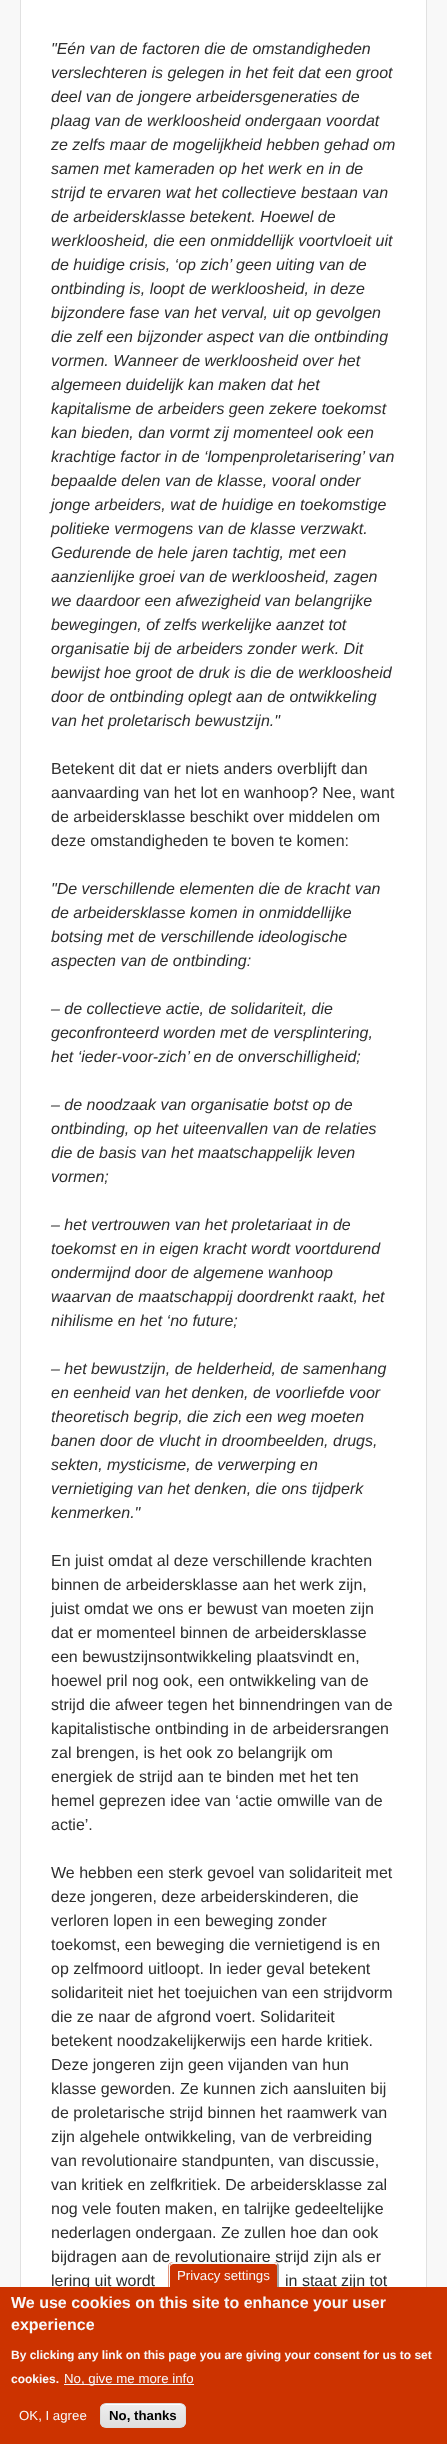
async function draw(canvas) {
	canvas.width = 447;
	canvas.height = 2444;
	const c = canvas.getContext('2d');
	c.miterLimit = 4;
	c.fontKerning = 'normal';
	let gradient;

	c.fillStyle = '#f8f8f8';
	c.fillRect(0, 0, 447, 2444);
	c.fillStyle = '#fff';
	c.fillRect(21, 0, 405, 2287);
	c.strokeStyle = '#e1e1e1';
	c.strokeRect(20.5, -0.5, 406, 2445);
	c.font = 'italic 16px Liberation Sans';
	c.fillStyle = '#2e2e2e';
	for (const [text, x, y] of [
		['"Eén van de factoren die de omstandigheden', 51, 54],
		['verslechteren is gelegen in het feit dat een groot', 51, 78],
		['deel van de jongere arbeidersgeneraties de', 51, 102],
		['plaag van de werkloosheid ondergaan voordat', 51, 126],
		['ze zelfs maar de mogelijkheid hebben gehad om', 51, 150],
		['samen met kameraden op het werk en in de', 51, 174],
		['strijd te ervaren wat het collectieve bestaan van', 51, 198],
		['de arbeidersklasse betekent. Hoewel de', 51, 222],
		['werkloosheid, die een onmiddellijk voortvloeit uit', 51, 246],
		['de huidige crisis, ‘op zich’ geen uiting van de', 51, 270],
		['ontbinding is, loopt de werkloosheid, in deze', 51, 294],
		['bijzondere fase van het verval, uit op gevolgen', 51, 318],
		['die zelf een bijzonder aspect van die ontbinding', 51, 342],
		['vormen. Wanneer de werkloosheid over het', 51, 366],
		['algemeen duidelijk kan maken dat het', 51, 390],
		['kapitalisme de arbeiders geen zekere toekomst', 51, 414],
		['kan bieden, dan vormt zij momenteel ook een', 51, 438],
		['krachtige factor in de ‘lompenproletarisering’ van', 51, 462],
		['bepaalde delen van de klasse, vooral onder', 51, 486],
		['jonge arbeiders, wat de huidige en toekomstige', 51, 510],
		['politieke vermogens van de klasse verzwakt.', 51, 534],
		['Gedurende de hele jaren tachtig, met een', 51, 558],
		['aanzienlijke groei van de werkloosheid, zagen', 51, 582],
		['we daardoor een afwezigheid van belangrijke', 51, 606],
		['bewegingen, of zelfs werkelijke aanzet tot', 51, 630],
		['organisatie bij de arbeiders zonder werk. Dit', 51, 654],
		['bewijst hoe groot de druk is die de werkloosheid', 51, 678],
		['door de ontbinding oplegt aan de ontwikkeling', 51, 702],
		['van het proletarisch bewustzijn."', 51, 726],
	]) {
		c.fillText(text, x, y);
	}
	c.font = '16px Liberation Sans';
	for (const [text, x, y] of [
		['Betekent dit dat er niets anders overblijft dan', 51, 774],
		['aanvaarding van het lot en wanhoop? Nee, want', 51, 798],
		['de arbeidersklasse beschikt over middelen om', 51, 822],
		['deze omstandigheden te boven te komen:', 51, 846],
	]) {
		c.fillText(text, x, y);
	}
	c.font = 'italic 16px Liberation Sans';
	for (const [text, x, y] of [
		['"De verschillende elementen die de kracht van', 51, 894],
		['de arbeidersklasse komen in onmiddellijke', 51, 918],
		['botsing met de verschillende ideologische', 51, 942],
		['aspecten van de ontbinding:', 51, 966],
		['– de collectieve actie, de solidariteit, die', 51, 1014],
		['geconfronteerd worden met de versplintering,', 51, 1038],
		['het ‘ieder-voor-zich’ en de onverschilligheid;', 51, 1062],
		['– de noodzaak van organisatie botst op de', 51, 1110],
		['ontbinding, op het uiteenvallen van de relaties', 51, 1134],
		['die de basis van het maatschappelijk leven', 51, 1158],
		['vormen;', 51, 1182],
		['– het vertrouwen van het proletariaat in de', 51, 1230],
		['toekomst en in eigen kracht wordt voortdurend', 51, 1254],
		['ondermijnd door de algemene wanhoop', 51, 1278],
		['waarvan de maatschappij doordrenkt raakt, het', 51, 1302],
		['nihilisme en het ‘no future;', 51, 1326],
		['– het bewustzijn, de helderheid, de samenhang', 51, 1374],
		['en eenheid van het denken, de voorliefde voor', 51, 1398],
		['theoretisch begrip, die zich een weg moeten', 51, 1422],
		['banen door de vlucht in droombeelden, drugs,', 51, 1446],
		['sekten, mysticisme, de verwerping en', 51, 1470],
		['vernietiging van het denken, die ons tijdperk', 51, 1494],
		['kenmerken."', 51, 1518],
	]) {
		c.fillText(text, x, y);
	}
	c.font = '16px Liberation Sans';
	for (const [text, x, y] of [
		['En juist omdat al deze verschillende krachten', 51, 1566],
		['binnen de arbeidersklasse aan het werk zijn,', 51, 1590],
		['juist omdat we ons er bewust van moeten zijn', 51, 1614],
		['dat er momenteel binnen de arbeidersklasse', 51, 1638],
		['een bewustzijnsontwikkeling plaatsvindt en,', 51, 1662],
		['hoewel pril nog ook, een ontwikkeling van de', 51, 1686],
		['strijd die afweer tegen het binnendringen van de', 51, 1710],
		['kapitalistische ontbinding in de arbeidersrangen', 51, 1734],
		['zal brengen, is het ook zo belangrijk om', 51, 1758],
		['energiek de strijd aan te binden met het ten', 51, 1782],
		['hemel geprezen idee van ‘actie omwille van de', 51, 1806],
		['actie’.', 51, 1830],
		['We hebben een sterk gevoel van solidariteit met', 51, 1878],
		['deze jongeren, deze arbeiderskinderen, die', 51, 1902],
		['verloren lopen in een beweging zonder', 51, 1926],
		['toekomst, een beweging die vernietigend is en', 51, 1950],
		['op zelfmoord uitloopt. In ieder geval betekent', 51, 1974],
		['solidariteit niet het toejuichen van een strijdvorm', 51, 1998],
		['die ze naar de afgrond voert. Solidariteit', 51, 2022],
		['betekent noodzakelijkerwijs een harde kritiek.', 51, 2046],
		['Deze jongeren zijn geen vijanden van hun', 51, 2070],
		['klasse geworden. Ze kunnen zich aansluiten bij', 51, 2094],
		['de proletarische strijd binnen het raamwerk van', 51, 2118],
		['zijn algehele ontwikkeling, van de verbreiding', 51, 2142],
		['van revolutionaire standpunten, van discussie,', 51, 2166],
		['van kritiek en zelfkritiek. De arbeidersklasse zal', 51, 2190],
		['nog vele fouten maken, en talrijke gedeeltelijke', 51, 2214],
		['nederlagen ondergaan. Ze zullen hoe dan ook', 51, 2238],
		['bijdragen aan de revolutionaire strijd zijn als er', 51, 2262],
		['lering uit wordt', 51, 2286],
		['in staat zijn tot', 285, 2286],
	]) {
		c.fillText(text, x, y);
	}
	c.fillStyle = '#c30';
	c.fillRect(0, 2287, 447, 157);
	c.beginPath();
	c.roundRect(168, 2262, 111, 25, [5, 5, 0, 0]);
	c.fill();
	c.fillStyle = '#f8f8f8';
	c.beginPath();
	c.moveTo(173, 2262);
	c.lineTo(170, 2263);
	c.lineTo(171, 2265);
	c.lineTo(173, 2264);
	c.lineTo(274, 2264);
	c.bezierCurveTo(275, 2264, 276, 2264, 276, 2265);
	c.lineTo(278, 2264);
	c.bezierCurveTo(277, 2263, 276, 2262, 274, 2262);
	c.closePath();
	c.fill();
	c.fillStyle = '#a5a5a5';
	c.beginPath();
	c.moveTo(277, 2287);
	c.lineTo(279, 2287);
	c.lineTo(279, 2267);
	c.bezierCurveTo(279, 2265.5, 278.5, 2264.5, 278, 2263.5);
	c.lineTo(276.5, 2265);
	c.bezierCurveTo(277, 2265.5, 277, 2266, 277, 2267);
	c.closePath();
	c.fill();
	c.fillStyle = '#f8f8f8';
	c.beginPath();
	c.moveTo(168.5, 2287);
	c.lineTo(168.5, 2265.5);
	c.lineTo(169.5, 2263.5);
	c.lineTo(171, 2265);
	c.bezierCurveTo(170.5, 2265.5, 170, 2266, 170, 2267);
	c.lineTo(170, 2287);
	c.closePath();
	c.fill();
	c.font = '13.25px Liberation Sans';
	c.fillText('Privacy settings', 177, 2280);
	c.font = 'bold 16px Liberation Sans';
	c.fillText('We use cookies on this site to enhance your user', 11, 2308);
	c.fillText('experience', 11, 2330);
	c.font = 'bold 12px Liberation Sans';
	c.fillText('By clicking any link on this page you are giving your consent for us to set', 11, 2359);
	c.fillText('cookies.', 11, 2383);
	c.fillRect(64, 2384, 130, 1);
	c.font = '13.25px Liberation Sans';
	c.fillText('No, give me more info', 64, 2383);
	c.fillText('OK, I agree', 19, 2420);
	c.save();
	c.beginPath();
	c.roundRect(100, 2403, 86, 25, 6);
	c.clip();
	gradient = c.createLinearGradient(143, 2404, 143, 2427);
	gradient.addColorStop(0.05, '#ededed');
	gradient.addColorStop(1, '#dfdfdf');
	c.fillStyle = gradient;
	c.fillRect(100, 2404, 86, 23);
	c.restore();
	c.fillStyle = '#fff';
	c.beginPath();
	c.moveTo(106, 2405);
	c.lineTo(180, 2405);
	c.bezierCurveTo(183, 2405, 185, 2407, 185, 2410);
	c.bezierCurveTo(185, 2401, 173, 2404, 168, 2404);
	c.lineTo(118, 2404);
	c.bezierCurveTo(113, 2404, 101, 2401, 101, 2410);
	c.bezierCurveTo(101, 2407, 103, 2405, 106, 2405);
	c.closePath();
	c.fill();
	c.beginPath();
	c.roundRect(100.5, 2403.5, 85, 24, 5.5);
	c.strokeStyle = '#dcdcdc';
	c.stroke();
	c.font = 'bold 13.25px Liberation Sans';
	c.fillStyle = '#000';
	c.fillText('No, thanks', 109, 2420);
}

draw(document.querySelector('canvas'));
